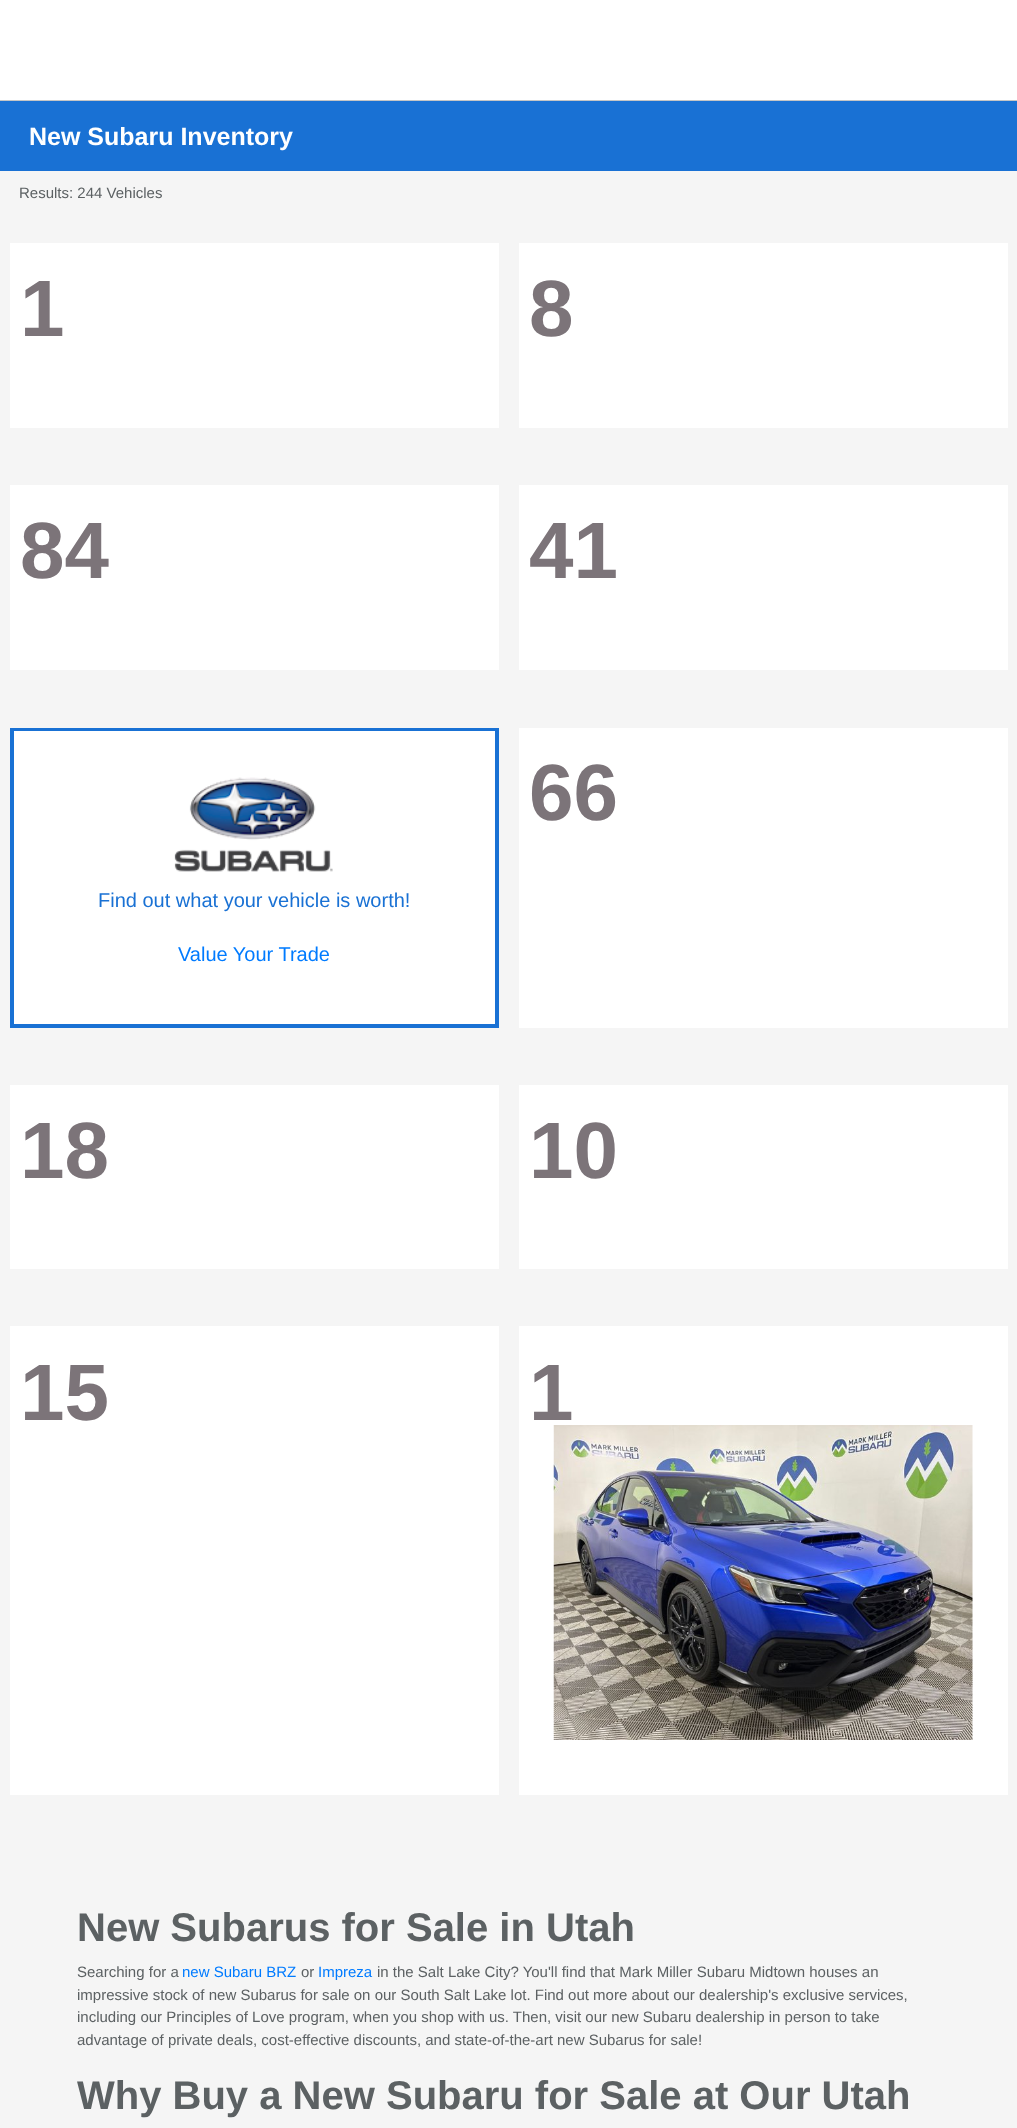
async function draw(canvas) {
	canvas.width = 1017;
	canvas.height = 2128;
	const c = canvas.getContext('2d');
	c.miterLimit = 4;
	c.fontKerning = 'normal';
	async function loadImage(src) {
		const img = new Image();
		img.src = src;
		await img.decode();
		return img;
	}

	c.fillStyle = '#fff';
	c.fillRect(0, 0, 1017, 2128);
	for (const [x, y, w, h, color] of [
		[0, 171, 1017, 1957, '#f5f5f5'],
		[0, 101, 1017, 70, '#1971d4'],
		[0, 100, 1017, 1, '#c6c6c6'],
	]) {
		c.fillStyle = color;
		c.fillRect(x, y, w, h);
	}
	c.font = 'bold 25px Liberation Sans';
	c.fillStyle = '#fff';
	c.fillText('New Subaru Inventory', 29, 145);
	c.font = '15px Liberation Sans';
	c.fillStyle = '#5c6163';
	c.fillText('Results: 244 Vehicles', 19, 198);
	c.fillStyle = '#fff';
	c.fillRect(10, 243, 489, 185);
	c.font = 'bold 80px Liberation Sans';
	c.fillStyle = '#7c7479';
	c.fillText('1', 20, 336);
	c.fillStyle = '#fff';
	c.fillRect(519, 243, 489, 185);
	c.fillStyle = '#7c7479';
	c.fillText('8', 529, 336);
	c.fillStyle = '#fff';
	c.fillRect(10, 485, 489, 185);
	c.fillStyle = '#7c7479';
	c.fillText('84', 20, 578);
	c.fillStyle = '#fff';
	c.fillRect(519, 485, 489, 185);
	c.fillStyle = '#7c7479';
	c.fillText('41', 529, 578);
	c.fillStyle = '#fff';
	c.fillRect(519, 728, 489, 300);
	c.fillStyle = '#7c7479';
	c.fillText('66', 529, 820);
	c.strokeStyle = '#1971d4';
	c.lineWidth = 4;
	c.strokeRect(12, 730, 485, 296);
	c.fillStyle = '#fff';
	c.fillRect(14, 731, 481, 293);
	c.drawImage(await loadImage('img1.png'), 174, 777, 159, 95);
	c.font = '20px Liberation Sans';
	c.fillStyle = '#1971d4';
	c.fillText('Find out what your vehicle is worth!', 98, 907);
	c.fillStyle = '#007bff';
	c.fillText('Value Your Trade', 178, 961);
	c.fillStyle = '#fff';
	c.fillRect(10, 1085, 489, 184);
	c.font = 'bold 80px Liberation Sans';
	c.fillStyle = '#7c7479';
	c.fillText('18', 20, 1178);
	c.fillStyle = '#fff';
	c.fillRect(519, 1085, 489, 184);
	c.fillStyle = '#7c7479';
	c.fillText('10', 529, 1178);
	c.fillStyle = '#fff';
	c.fillRect(10, 1326, 489, 469);
	c.fillStyle = '#7c7479';
	c.fillText('15', 20, 1420);
	c.fillStyle = '#fff';
	c.fillRect(519, 1326, 489, 469);
	c.fillStyle = '#7c7479';
	c.fillText('1', 529, 1420);
	c.drawImage(await loadImage('img2.png'), 553, 1425, 420, 315);
	c.font = 'bold 40px Liberation Sans';
	c.fillStyle = '#5c6163';
	c.fillText('New Subarus for Sale in Utah', 77, 1941);
	c.font = '15px Liberation Sans';
	c.fillText('Searching for a', 77, 1977);
	c.fillStyle = '#007bff';
	c.fillText('new Subaru BRZ', 182, 1977);
	c.fillStyle = '#5c6163';
	c.fillText('or', 301, 1977);
	c.fillStyle = '#007bff';
	c.fillText('Impreza', 318, 1977);
	c.fillStyle = '#5c6163';
	for (const [text, x, y] of [
		['in the Salt Lake City? You\'ll find that Mark Miller Subaru Midtown houses an', 377, 1977],
		['impressive stock of new Subarus for sale on our South Salt Lake lot. Find out more about our dealership\'s exclusive services,', 77, 2000],
		['including our Principles of Love program, when you shop with us. Then, visit our new Subaru dealership in person to take', 77, 2022],
		['advantage of private deals, cost-effective discounts, and state-of-the-art new Subarus for sale!', 77, 2045],
	]) {
		c.fillText(text, x, y);
	}
	c.font = 'bold 40px Liberation Sans';
	c.fillText('Why Buy a New Subaru for Sale at Our Utah', 77, 2109);
}

draw(document.querySelector('canvas'));
